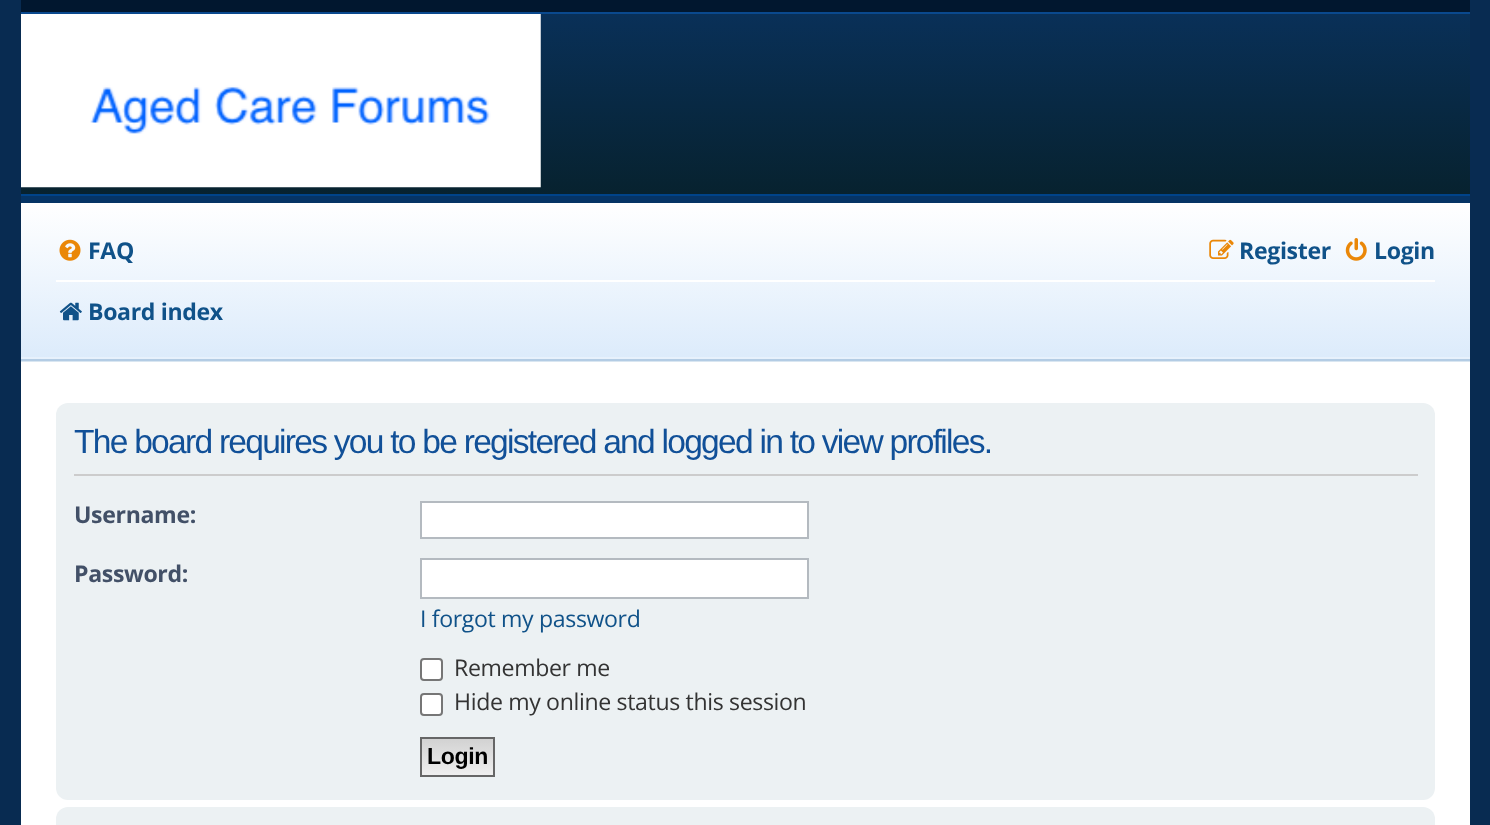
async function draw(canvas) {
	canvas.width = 1490;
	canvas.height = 825;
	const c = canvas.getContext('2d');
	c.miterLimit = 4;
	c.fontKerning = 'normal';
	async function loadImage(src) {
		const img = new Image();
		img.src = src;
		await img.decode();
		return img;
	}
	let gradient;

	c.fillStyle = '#082b51';
	c.fillRect(0, 0, 1490, 825);
	c.fillStyle = '#fff';
	c.fillRect(21, 362, 1449, 463);
	c.fillStyle = '#01172f';
	c.fillRect(21, 0, 1449, 12);
	gradient = c.createLinearGradient(746, 194, 746, 14);
	gradient.addColorStop(0, '#07222f');
	gradient.addColorStop(1, '#093058');
	c.fillStyle = gradient;
	c.fillRect(21, 14, 1449, 180);
	c.fillStyle = '#0a498e';
	c.fillRect(21, 12, 1449, 2);
	c.fillStyle = '#004389';
	c.fillRect(21, 194, 1449, 2);
	c.drawImage(await loadImage('img1.png'), 21, 14, 520, 174);
	c.fillStyle = '#d9e6f1';
	c.fillRect(21, 361, 1449, 1);
	gradient = c.createLinearGradient(746, 359, 746, 203);
	gradient.addColorStop(0, '#dcebfb');
	gradient.addColorStop(1, '#fff');
	c.fillStyle = gradient;
	c.fillRect(21, 203, 1449, 154);
	for (const [x, y, w, h, color] of [
		[21, 357, 1449, 2, '#e7f1fc'],
		[21, 196, 1449, 7, '#063465'],
		[21, 359, 1449, 2, '#b3cce4'],
	]) {
		c.fillStyle = color;
		c.fillRect(x, y, w, h);
	}
	c.drawImage(await loadImage('img2.png'), 59, 239, 22, 22);
	c.letterSpacing = '-0.35px';
	c.font = 'bold 23.1px Open Sans';
	c.fillStyle = '#105289';
	c.fillText('FAQ', 88, 259);
	c.drawImage(await loadImage('img3.png'), 1209, 239, 25, 20);
	c.fillText('Register', 1239, 259);
	c.drawImage(await loadImage('img4.png'), 1345, 238, 22, 23);
	c.fillText('Login', 1374, 259);
	c.fillStyle = '#fff';
	c.fillRect(56, 280, 1379, 2);
	c.drawImage(await loadImage('img5.png'), 59, 302, 23, 19);
	c.fillStyle = '#105289';
	c.fillText('Board index', 88, 320);
	c.fillStyle = '#ecf1f3';
	c.beginPath();
	c.roundRect(56, 403, 1379, 397, 12);
	c.fill();
	c.fillStyle = '#ccc';
	c.fillRect(74, 474, 1344, 2);
	c.letterSpacing = '-1.75px';
	c.font = '33.6px Liberation Sans';
	c.fillStyle = '#115098';
	c.fillText('The board requires you to be registered and logged in to view profiles.', 74, 453);
	c.letterSpacing = '-0.35px';
	c.font = 'bold 23.1px Open Sans';
	c.fillStyle = '#425067';
	c.fillText('Username:', 74, 523);
	c.fillStyle = '#fff';
	c.beginPath();
	c.rect(421, 502, 387, 36);
	c.fill();
	c.strokeStyle = '#b4bac0';
	c.lineWidth = 2;
	c.stroke();
	c.fillStyle = '#425067';
	c.fillText('Password:', 74, 582);
	c.fillStyle = '#fff';
	c.beginPath();
	c.rect(421, 559, 387, 39);
	c.fill();
	c.stroke();
	c.font = '23.1px Open Sans';
	c.fillStyle = '#105289';
	c.fillText('I forgot my password', 420, 627);
	c.fillStyle = '#fff';
	c.beginPath();
	c.roundRect(421, 659, 21, 21, 3);
	c.fill();
	c.strokeStyle = '#767676';
	c.stroke();
	c.fillStyle = '#333';
	c.fillText('Remember me', 454, 676);
	c.fillStyle = '#fff';
	c.beginPath();
	c.roundRect(421, 694, 21, 21, 3);
	c.fill();
	c.stroke();
	c.fillStyle = '#333';
	c.fillText('Hide my online status this session', 454, 710);
	gradient = c.createLinearGradient(458, 739, 458, 775);
	gradient.addColorStop(0, '#d2d2d2');
	gradient.addColorStop(1, '#efefef');
	c.fillStyle = gradient;
	c.fillRect(422, 739, 71, 36);
	c.strokeStyle = '#666';
	c.strokeRect(421, 738, 73, 38);
	c.font = 'bold 23.1px Liberation Sans';
	c.fillStyle = '#000';
	c.fillText('Login', 427, 764);
	c.fillStyle = '#ecf1f3';
	c.beginPath();
	c.roundRect(56, 807, 1379, 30, 12);
	c.fill();
}

draw(document.querySelector('canvas'));
